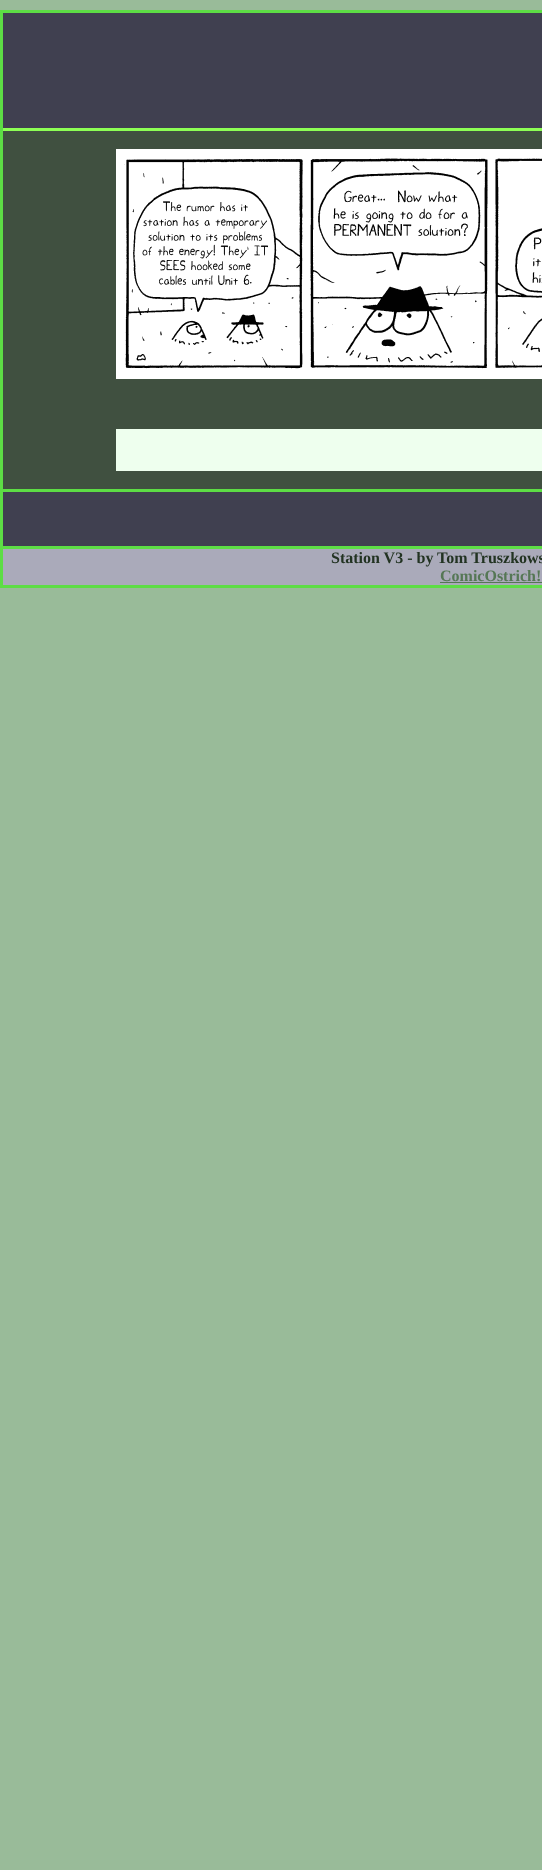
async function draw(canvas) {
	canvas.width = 542;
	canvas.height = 1870;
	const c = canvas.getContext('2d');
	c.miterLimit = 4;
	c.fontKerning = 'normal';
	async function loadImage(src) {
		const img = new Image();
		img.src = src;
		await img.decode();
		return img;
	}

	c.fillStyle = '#9b9';
	c.fillRect(0, 0, 542, 1870);
	c.fillStyle = '#404050';
	c.fillRect(3, 13, 539, 533);
	c.strokeStyle = '#5ddd45';
	c.lineWidth = 3;
	c.strokeRect(1.5, 11.5, 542, 575);
	for (const [x, y, w, h, color] of [
		[3, 128, 539, 3, '#8dff55'],
		[3, 131, 539, 358, '#405040'],
		[3, 489, 539, 3, '#5ddd45'],
	]) {
		c.fillStyle = color;
		c.fillRect(x, y, w, h);
	}
	c.drawImage(await loadImage('img1.png'), 116, 149, 426, 230);
	for (const [x, y, w, h, color] of [
		[116, 429, 426, 42, '#efe'],
		[3, 549, 539, 36, '#aaaaba'],
		[3, 546, 539, 3, '#5ddd45'],
	]) {
		c.fillStyle = color;
		c.fillRect(x, y, w, h);
	}
	c.font = 'bold 16px Liberation Serif';
	c.fillStyle = '#232';
	c.fillText('Station V3 - by Tom Truszkows', 331, 563);
	c.fillStyle = '#575';
	c.fillText('ComicOstrich!', 440, 581);
	c.fillRect(440, 582, 102, 1);
}

draw(document.querySelector('canvas'));
